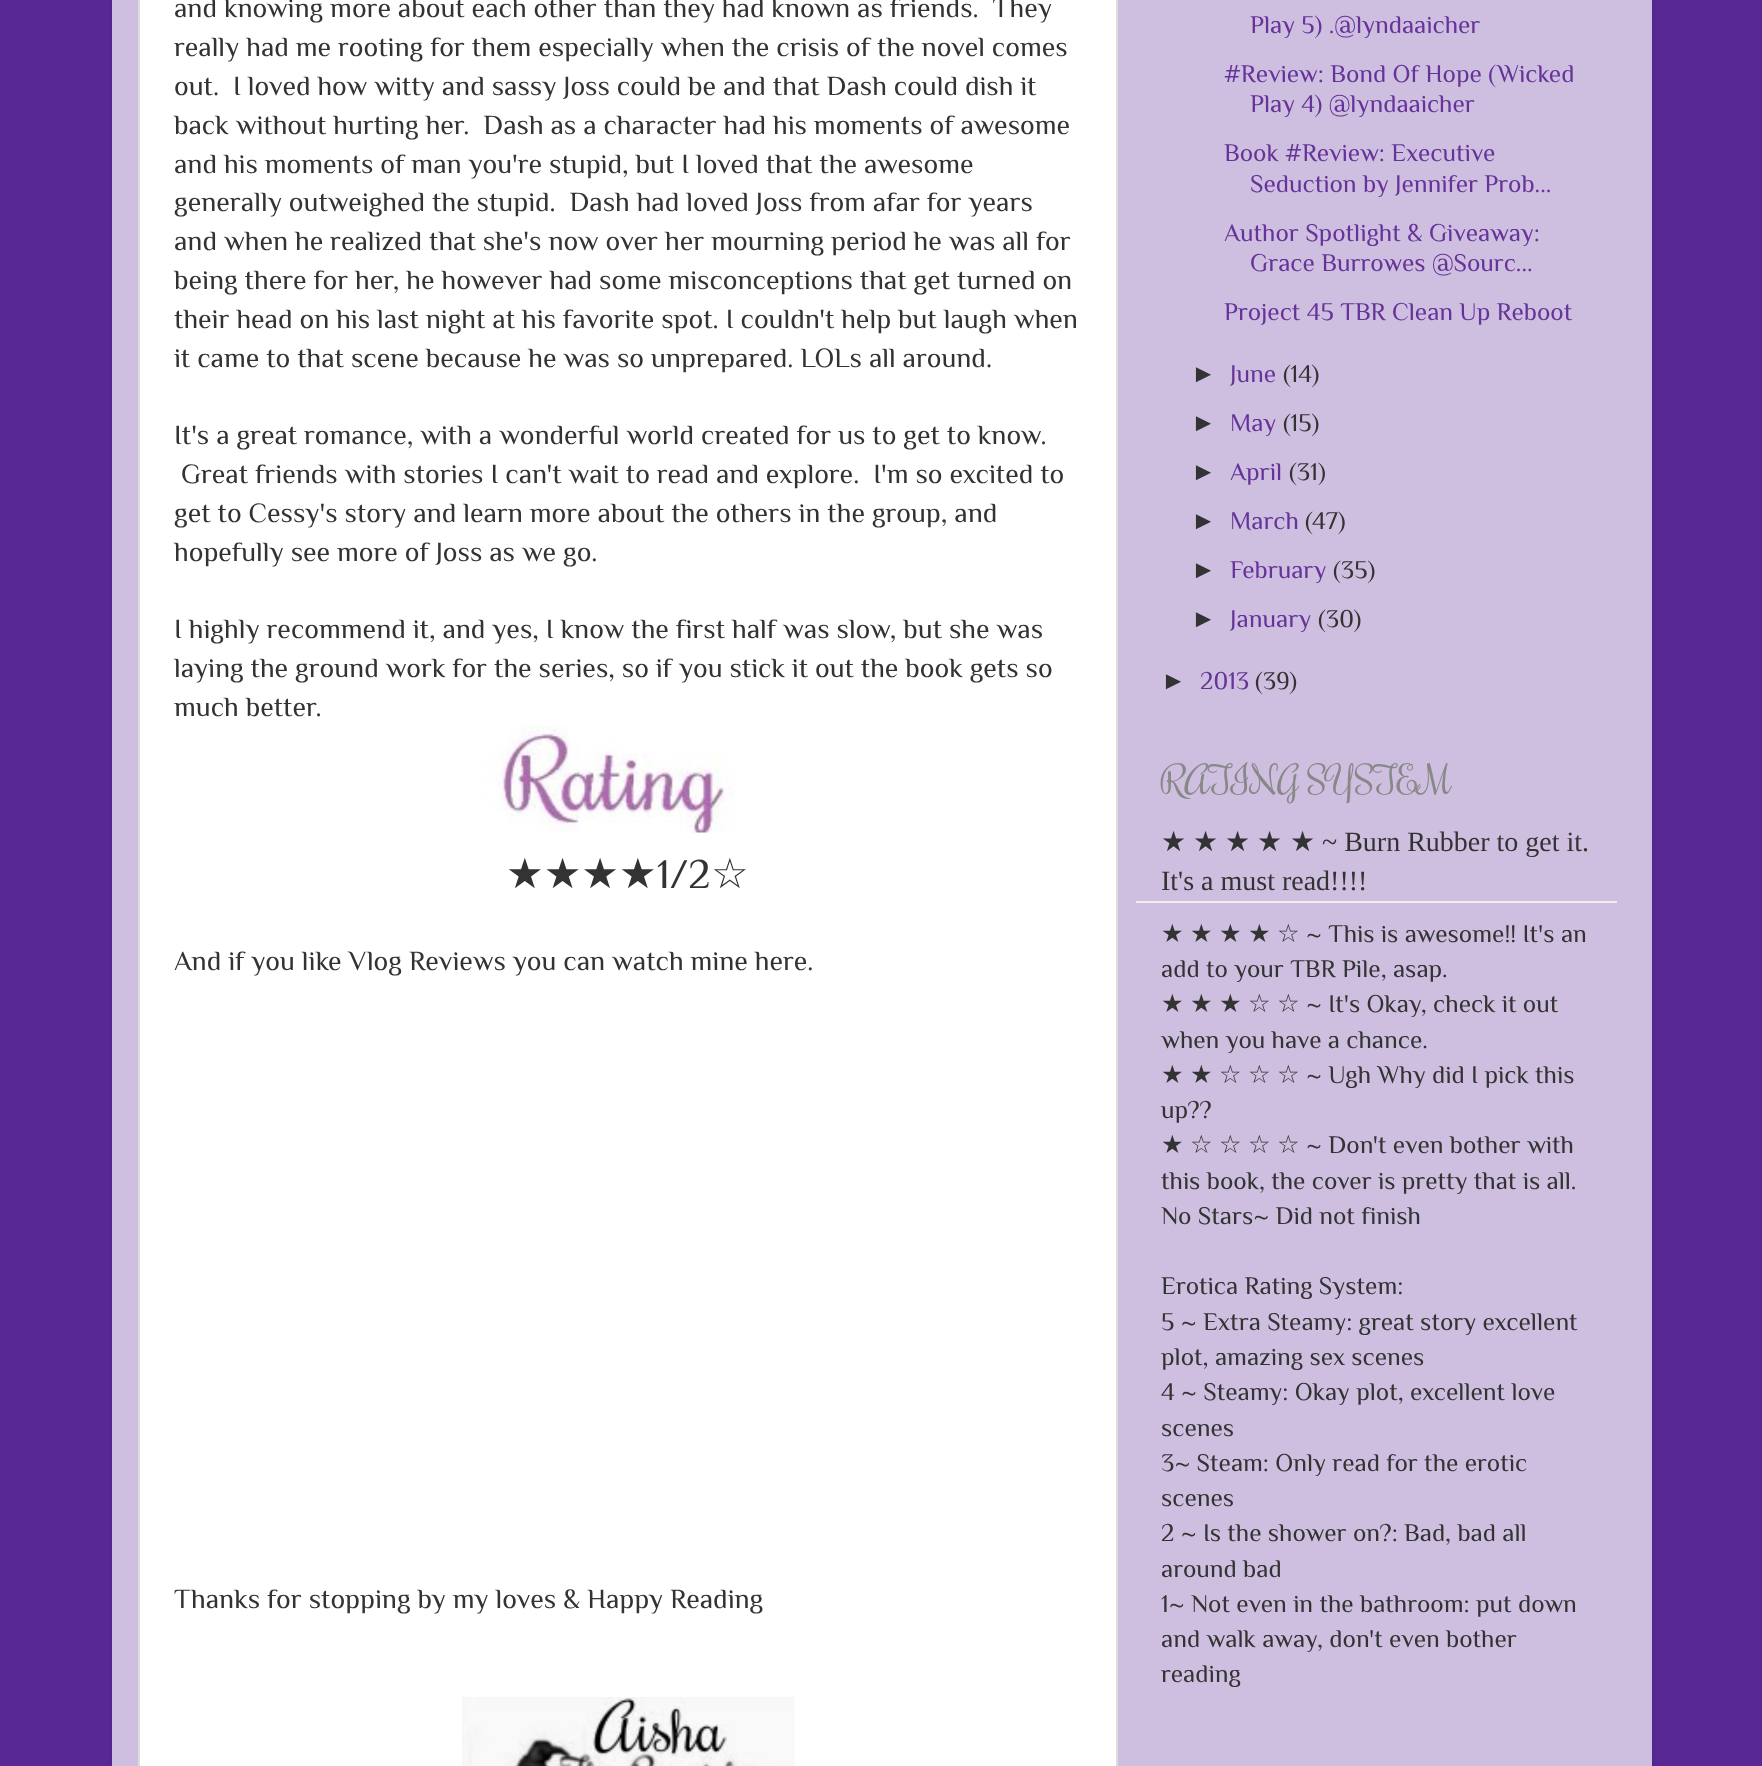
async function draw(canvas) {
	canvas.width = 1762;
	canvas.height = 1766;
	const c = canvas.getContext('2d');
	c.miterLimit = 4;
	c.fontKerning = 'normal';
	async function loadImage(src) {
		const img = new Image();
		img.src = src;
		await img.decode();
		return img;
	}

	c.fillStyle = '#582995';
	c.fillRect(0, 0, 1762, 1766);
	c.fillStyle = '#00000026';
	c.filter = 'blur(2.5px)';
	c.beginPath();
	c.roundRect(112, -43, 1540, 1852, 35);
	c.fill();
	c.filter = 'none';
	c.fillStyle = '#cebfe0';
	c.fillRect(112, 0, 1540, 1766);
	c.fillStyle = '#fff';
	c.beginPath();
	c.rect(139, -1, 978, 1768);
	c.fill();
	c.strokeStyle = '#ddd';
	c.lineWidth = 2;
	c.stroke();
	c.font = '27.75px Philosopher';
	c.fillStyle = '#333';
	for (const [text, x, y] of [
		['and knowing more about each other than they had known as friends.  They', 174, 17],
		['really had me rooting for them especially when the crisis of the novel comes', 174, 56],
		['out.  I loved how witty and sassy Joss could be and that Dash could dish it', 174, 95],
		['back without hurting her.  Dash as a character had his moments of awesome', 174, 134],
		['and his moments of man you\'re stupid, but I loved that the awesome', 174, 173],
		['generally outweighed the stupid.  Dash had loved Joss from afar for years', 174, 211],
		['and when he realized that she\'s now over her mourning period he was all for', 174, 250],
		['being there for her, he however had some misconceptions that get turned on', 174, 289],
		['their head on his last night at his favorite spot. I couldn\'t help but laugh when', 174, 328],
		['it came to that scene because he was so unprepared. LOLs all around.', 174, 367],
		['It\'s a great romance, with a wonderful world created for us to get to know.', 174, 444],
		['Great friends with stories I can\'t wait to read and explore.  I\'m so excited to', 181, 483],
		['get to Cessy\'s story and learn more about the others in the group, and', 174, 522],
		['hopefully see more of Joss as we go.', 174, 561],
		['I highly recommend it, and yes, I know the first half was slow, but she was', 174, 638],
		['laying the ground work for the series, so if you stick it out the book gets so', 174, 677],
		['much better.', 174, 716],
	]) {
		c.fillText(text, x, y);
	}
	c.drawImage(await loadImage('img1.png'), 483, 725, 252, 108);
	c.font = '42px DejaVu Sans';
	c.fillText('★★★★', 506, 888);
	c.font = '42px Philosopher';
	c.fillText('1/2', 657, 888);
	c.font = '42px DejaVu Sans';
	c.fillText('☆', 711, 888);
	c.font = '27.75px Philosopher';
	c.fillText('And if you like Vlog Reviews you can watch mine here.', 174, 970);
	c.fillText('Thanks for stopping by my loves & Happy Reading', 174, 1608);
	c.drawImage(await loadImage('img2.png'), 462, 1697, 333, 69);
	c.font = '25.25px Philosopher';
	c.fillStyle = '#639';
	for (const [text, x, y] of [
		['Play 5) .@lyndaaicher', 1250, 33],
		['#Review: Bond Of Hope (Wicked', 1224, 82],
		['Play 4) @lyndaaicher', 1250, 112],
		['Book #Review: Executive', 1224, 161],
		['Seduction by Jennifer Prob...', 1250, 192],
		['Author Spotlight & Giveaway:', 1224, 241],
		['Grace Burrowes @Sourc...', 1250, 271],
		['Project 45 TBR Clean Up Reboot', 1224, 320],
	]) {
		c.fillText(text, x, y);
	}
	c.font = '25.25px Liberation Sans';
	c.fillStyle = '#333';
	c.fillText('►', 1191, 382);
	c.font = '25.25px Philosopher';
	c.fillStyle = '#639';
	c.fillText('June', 1230, 382);
	c.fillStyle = '#333';
	c.fillText('(14)', 1283, 382);
	c.font = '25.25px Liberation Sans';
	c.fillText('►', 1191, 431);
	c.font = '25.25px Philosopher';
	c.fillStyle = '#639';
	c.fillText('May', 1230, 431);
	c.fillStyle = '#333';
	c.fillText('(15)', 1283, 431);
	c.font = '25.25px Liberation Sans';
	c.fillText('►', 1191, 480);
	c.font = '25.25px Philosopher';
	c.fillStyle = '#639';
	c.fillText('April', 1230, 480);
	c.fillStyle = '#333';
	c.fillText('(31)', 1289, 480);
	c.font = '25.25px Liberation Sans';
	c.fillText('►', 1191, 529);
	c.font = '25.25px Philosopher';
	c.fillStyle = '#639';
	c.fillText('March', 1230, 529);
	c.fillStyle = '#333';
	c.fillText('(47)', 1305, 529);
	c.font = '25.25px Liberation Sans';
	c.fillText('►', 1191, 578);
	c.font = '25.25px Philosopher';
	c.fillStyle = '#639';
	c.fillText('February', 1230, 578);
	c.fillStyle = '#333';
	c.fillText('(35)', 1333, 578);
	c.font = '25.25px Liberation Sans';
	c.fillText('►', 1191, 627);
	c.font = '25.25px Philosopher';
	c.fillStyle = '#639';
	c.fillText('January', 1230, 627);
	c.fillStyle = '#333';
	c.fillText('(30)', 1318, 627);
	c.font = '25.25px Liberation Sans';
	c.fillText('►', 1161, 689);
	c.font = '25.25px Philosopher';
	c.fillStyle = '#639';
	c.fillText('2013', 1200, 689);
	c.fillStyle = '#333';
	c.fillText('(39)', 1255, 689);
	c.font = '37.75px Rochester';
	c.fillStyle = '#888';
	c.fillText('RATING SYSTEM', 1161, 794);
	c.font = '28px DejaVu Sans';
	c.fillStyle = '#333';
	for (const [text, x, y] of [
		['★', 1161, 851],
		['★', 1193, 851],
		['★', 1225, 851],
		['★', 1257, 851],
		['★', 1290, 851],
	]) {
		c.fillText(text, x, y);
	}
	c.font = '28px Liberation Serif';
	c.fillText('~ Burn Rubber to get it.', 1322, 851);
	c.fillText('It\'s a must read!!!!', 1161, 890);
	c.fillStyle = '#eee';
	c.fillRect(1136, 901, 481, 2);
	c.font = '25.25px DejaVu Sans';
	c.fillStyle = '#333';
	for (const [text, x, y] of [
		['★', 1161, 942],
		['★', 1190, 942],
		['★', 1219, 942],
		['★', 1248, 942],
		['☆', 1277, 942],
	]) {
		c.fillText(text, x, y);
	}
	c.font = '25.25px Philosopher';
	c.fillText('~ This is awesome!! It\'s an', 1306, 942);
	c.fillText('add to your TBR Pile, asap.', 1161, 977);
	c.font = '25.25px DejaVu Sans';
	for (const [text, x, y] of [
		['★', 1161, 1012],
		['★', 1190, 1012],
		['★', 1219, 1012],
		['☆', 1248, 1012],
		['☆', 1277, 1012],
	]) {
		c.fillText(text, x, y);
	}
	c.font = '25.25px Philosopher';
	c.fillText('~ It\'s Okay, check it out', 1306, 1012);
	c.fillText('when you have a chance.', 1161, 1048);
	c.font = '25.25px DejaVu Sans';
	for (const [text, x, y] of [
		['★', 1161, 1083],
		['★', 1190, 1083],
		['☆', 1219, 1083],
		['☆', 1248, 1083],
		['☆', 1277, 1083],
	]) {
		c.fillText(text, x, y);
	}
	c.font = '25.25px Philosopher';
	c.fillText('~ Ugh Why did I pick this', 1306, 1083);
	c.fillText('up??', 1161, 1118);
	c.font = '25.25px DejaVu Sans';
	for (const [text, x, y] of [
		['★', 1161, 1153],
		['☆', 1190, 1153],
		['☆', 1219, 1153],
		['☆', 1248, 1153],
		['☆', 1277, 1153],
	]) {
		c.fillText(text, x, y);
	}
	c.font = '25.25px Philosopher';
	for (const [text, x, y] of [
		['~ Don\'t even bother with', 1306, 1153],
		['this book, the cover is pretty that is all.', 1161, 1189],
		['No Stars~ Did not finish', 1161, 1224],
		['Erotica Rating System:', 1161, 1294],
		['5 ~ Extra Steamy: great story excellent', 1161, 1330],
		['plot, amazing sex scenes', 1161, 1365],
		['4 ~ Steamy: Okay plot, excellent love', 1161, 1400],
		['scenes', 1161, 1436],
		['3~ Steam: Only read for the erotic', 1161, 1471],
		['scenes', 1161, 1506],
		['2 ~ Is the shower on?: Bad, bad all', 1161, 1541],
		['around bad', 1161, 1577],
		['1~ Not even in the bathroom: put down', 1161, 1612],
		['and walk away, don\'t even bother', 1161, 1647],
		['reading', 1161, 1682],
	]) {
		c.fillText(text, x, y);
	}
}

draw(document.querySelector('canvas'));
